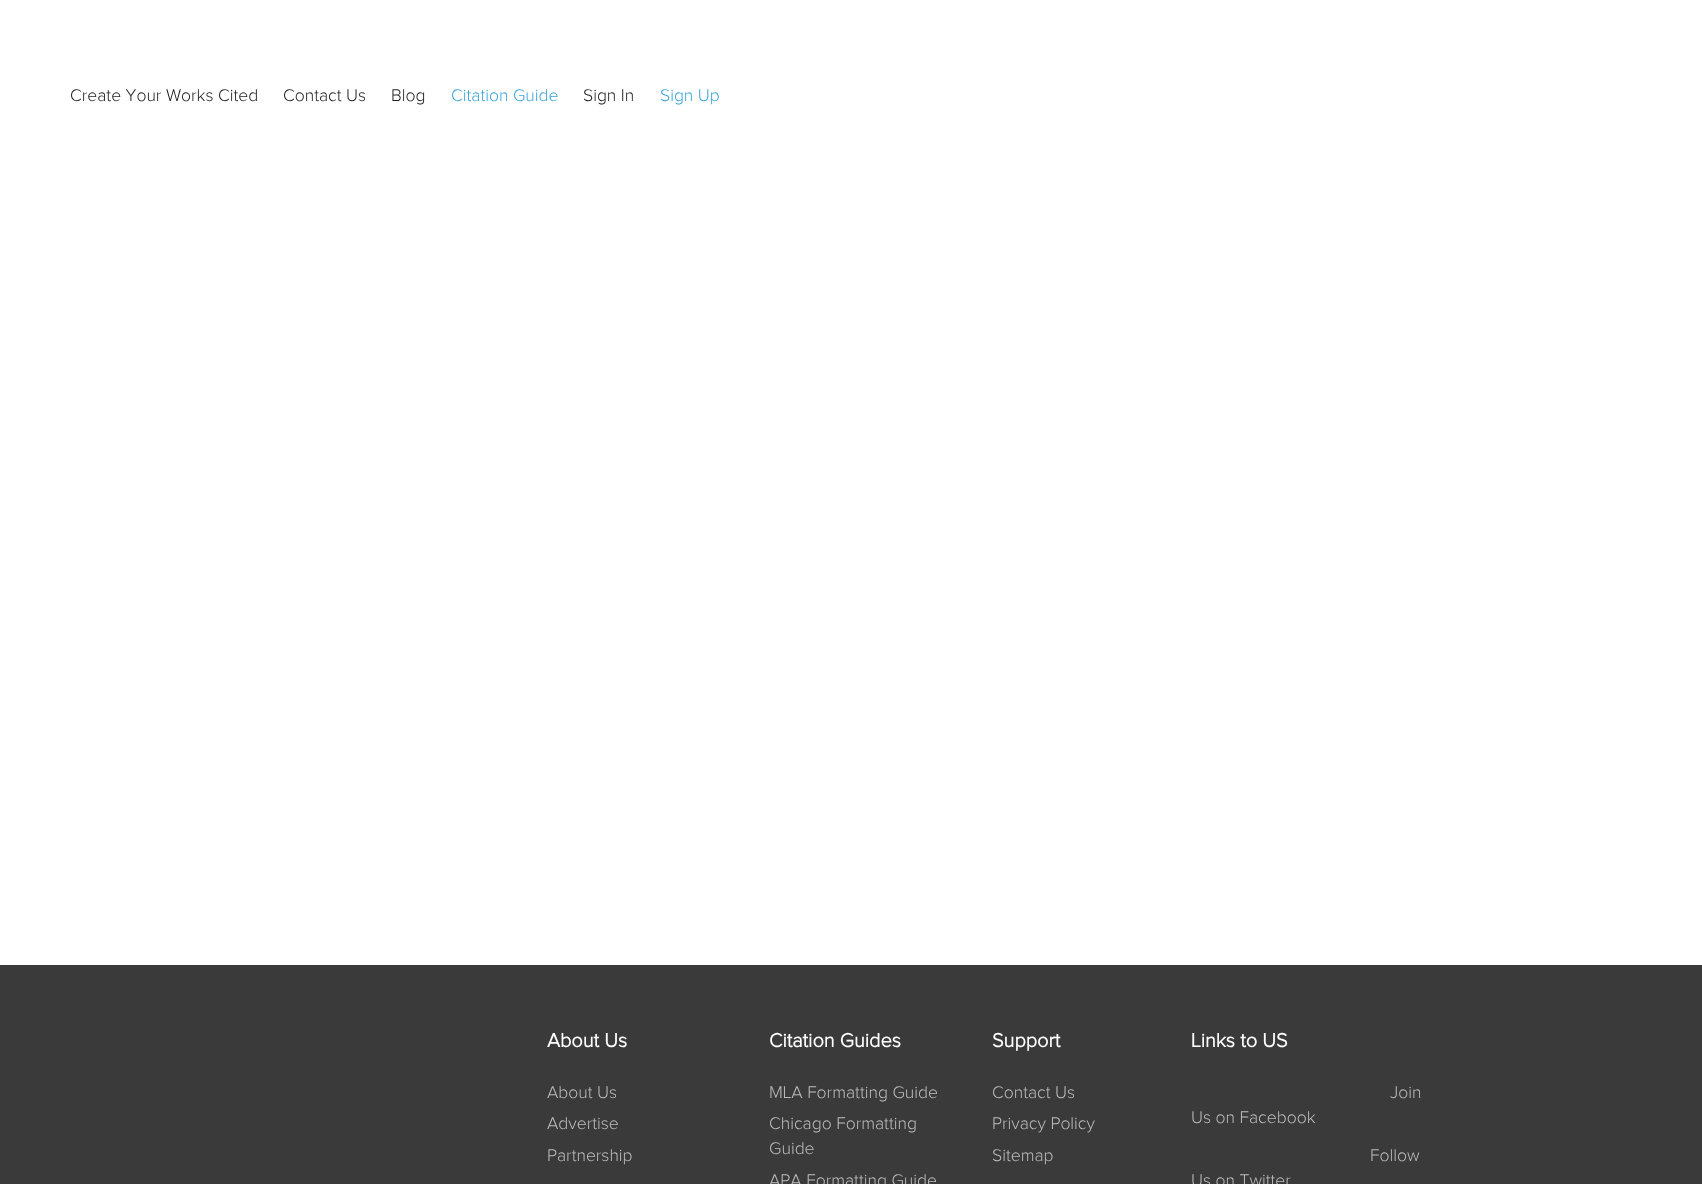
async function draw(canvas) {
	canvas.width = 1702;
	canvas.height = 1184;
	const c = canvas.getContext('2d');
	c.miterLimit = 4;
	c.fontKerning = 'normal';

	c.fillStyle = '#fff';
	c.fillRect(0, 0, 1702, 1184);
	c.font = '300 17.5px Proxima Nova';
	c.fillStyle = '#1e1d1d';
	for (const [text, x, y] of [
		['Create Your Works Cited', 70, 101],
		['Contact Us', 283, 101],
		['Blog', 391, 101],
	]) {
		c.fillText(text, x, y);
	}
	c.fillStyle = '#3ba5d8';
	c.fillText('Citation Guide', 451, 101);
	c.fillStyle = '#1e1d1d';
	c.fillText('Sign In', 583, 101);
	c.fillStyle = '#3ba5d8';
	c.fillText('Sign Up', 660, 101);
	c.fillStyle = '#3a3a3a';
	c.fillRect(0, 965, 1702, 219);
	c.font = 'bold 20px Proxima Nova';
	c.fillStyle = '#fff';
	c.fillText('About Us', 547, 1047);
	c.font = '300 17.5px Proxima Nova';
	c.fillStyle = '#bcbcbc';
	for (const [text, x, y] of [
		['About Us', 547, 1098],
		['Advertise', 547, 1129],
		['Partnership', 547, 1161],
	]) {
		c.fillText(text, x, y);
	}
	c.font = 'bold 20px Proxima Nova';
	c.fillStyle = '#fff';
	c.fillText('Citation Guides', 769, 1047);
	c.font = '300 17.5px Proxima Nova';
	c.fillStyle = '#bcbcbc';
	for (const [text, x, y] of [
		['MLA Formatting Guide', 769, 1098],
		['Chicago Formatting', 769, 1129],
		['Guide', 769, 1154],
		['APA Formatting Guide', 769, 1186],
	]) {
		c.fillText(text, x, y);
	}
	c.font = 'bold 20px Proxima Nova';
	c.fillStyle = '#fff';
	c.fillText('Support', 992, 1047);
	c.font = '300 17.5px Proxima Nova';
	c.fillStyle = '#bcbcbc';
	for (const [text, x, y] of [
		['Contact Us', 992, 1098],
		['Privacy Policy', 992, 1129],
		['Sitemap', 992, 1161],
	]) {
		c.fillText(text, x, y);
	}
	c.font = 'bold 20px Proxima Nova';
	c.fillStyle = '#fff';
	c.fillText('Links to US', 1191, 1047);
	c.font = '300 17.5px Proxima Nova';
	c.fillStyle = '#bcbcbc';
	for (const [text, x, y] of [
		['Join', 1390, 1098],
		['Us on Facebook', 1191, 1123],
		['Follow', 1370, 1161],
		['Us on Twitter', 1191, 1186],
	]) {
		c.fillText(text, x, y);
	}
}

draw(document.querySelector('canvas'));
